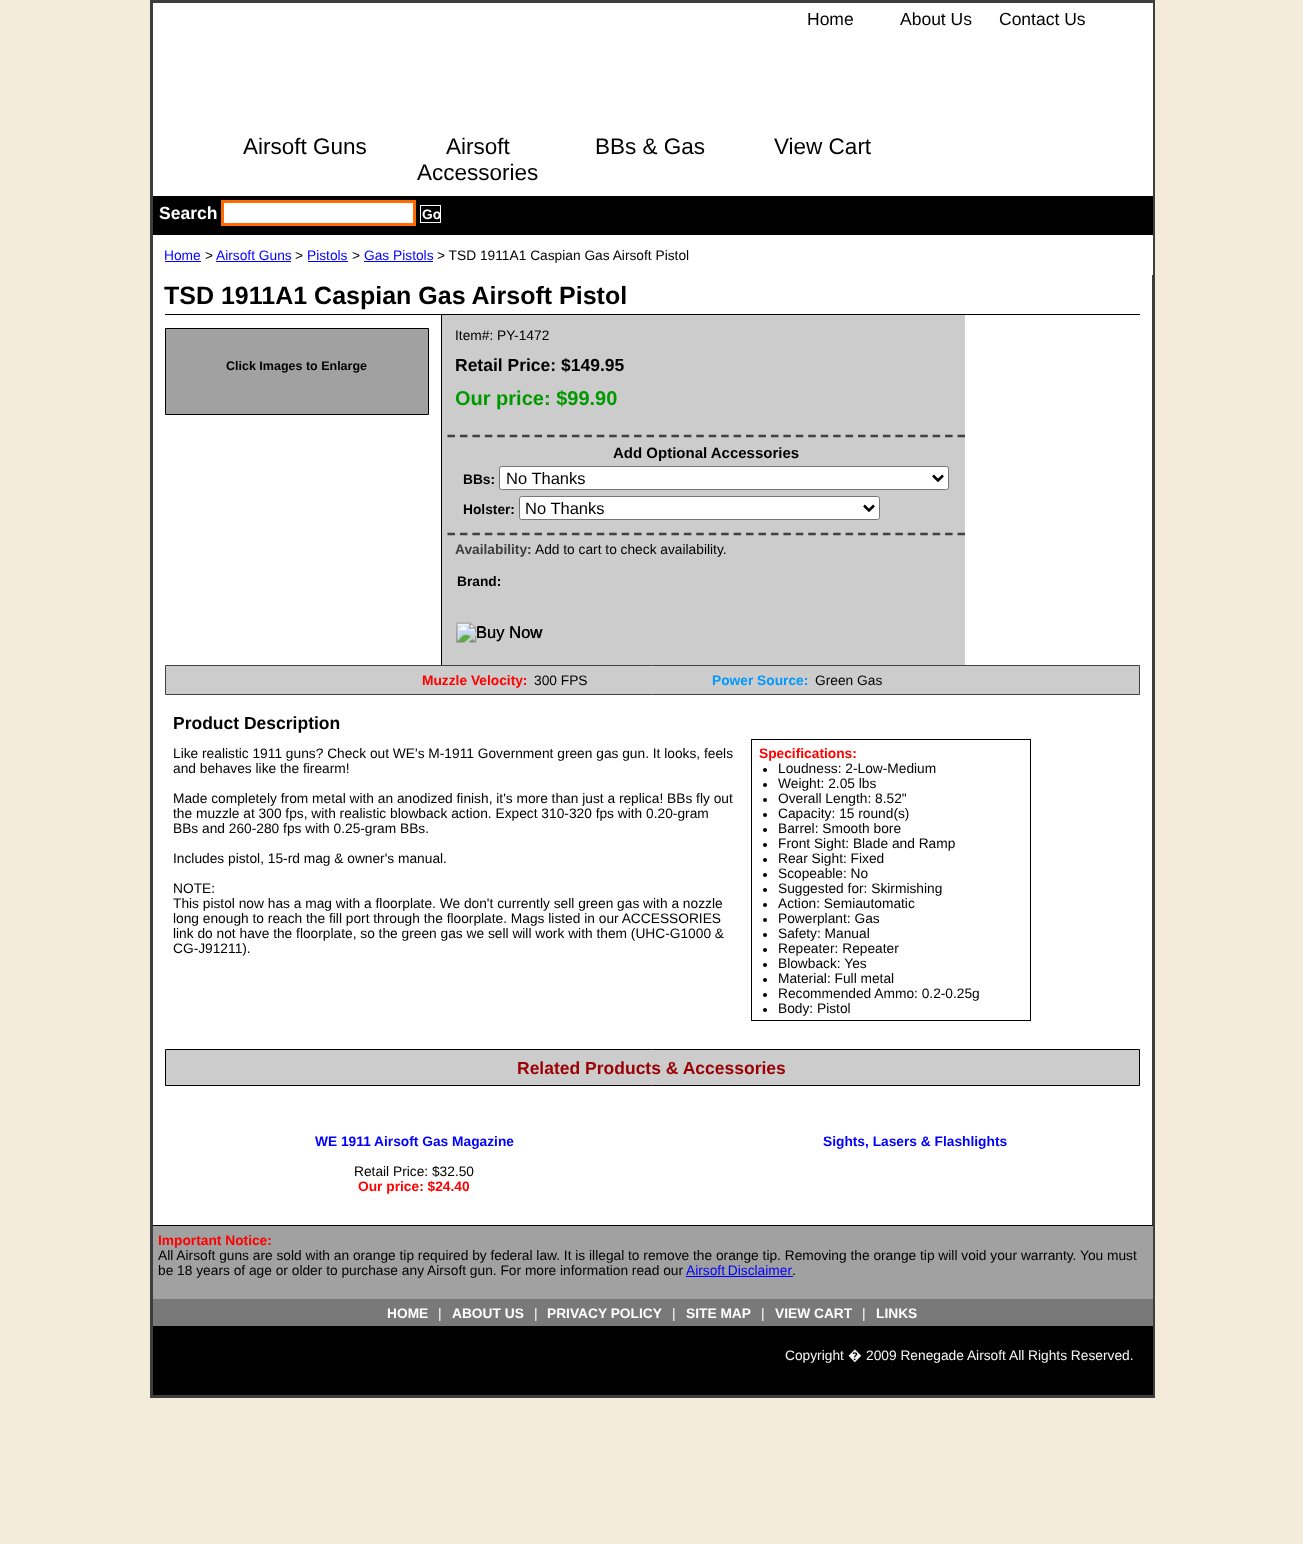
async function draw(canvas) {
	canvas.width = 1303;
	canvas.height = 1544;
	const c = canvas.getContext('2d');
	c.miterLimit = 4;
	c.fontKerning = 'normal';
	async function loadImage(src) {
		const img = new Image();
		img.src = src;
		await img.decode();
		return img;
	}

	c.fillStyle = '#f3ecda';
	c.fillRect(0, 0, 1303, 1544);
	c.fillStyle = '#fff';
	c.fillRect(153, 275, 999, 950);
	c.strokeStyle = '#3e3e3e';
	c.lineWidth = 3;
	c.strokeRect(151.5, 1.5, 1002, 1395);
	c.fillRect(153, 3, 1000, 193);
	c.font = '17.5px Liberation Sans';
	c.fillStyle = '#000';
	for (const [text, x, y] of [
		['Home', 807, 25],
		['About Us', 900, 25],
		['Contact Us', 999, 25],
	]) {
		c.fillText(text, x, y);
	}
	c.font = '22.5px Liberation Sans';
	for (const [text, x, y] of [
		['Airsoft Guns', 243, 154],
		['Airsoft', 446, 154],
		['Accessories', 417, 180],
		['BBs & Gas', 595, 154],
		['View Cart', 774, 154],
	]) {
		c.fillText(text, x, y);
	}
	c.fillRect(153, 196, 1000, 39);
	c.font = 'bold 17.5px Liberation Sans';
	c.fillStyle = '#fff';
	c.fillText('Search', 159, 219);
	c.beginPath();
	c.rect(222.5, 201.5, 192, 23);
	c.fill();
	c.strokeStyle = '#ff6b01';
	c.stroke();
	c.strokeStyle = '#fff';
	c.lineWidth = 1;
	c.strokeRect(420.5, 205.5, 20, 17);
	c.font = 'bold 13.75px Liberation Sans';
	c.fillText('Go', 422, 219);
	c.fillRect(153, 235, 1000, 40);
	c.font = '13.75px Liberation Sans';
	c.fillStyle = '#00f';
	c.fillText('Home', 164, 260);
	c.fillRect(165, 261, 36, 1);
	c.fillStyle = '#000';
	c.fillText('>', 205, 260);
	c.fillStyle = '#00f';
	c.fillText('Airsoft Guns', 216, 260);
	c.fillRect(216, 261, 75, 1);
	c.fillStyle = '#000';
	c.fillText('>', 295, 260);
	c.fillStyle = '#00f';
	c.fillText('Pistols', 307, 260);
	c.fillRect(308, 261, 40, 1);
	c.fillStyle = '#000';
	c.fillText('>', 352, 260);
	c.fillStyle = '#00f';
	c.fillText('Gas Pistols', 364, 260);
	c.fillRect(364, 261, 69, 1);
	c.fillStyle = '#000';
	c.fillText('> TSD 1911A1 Caspian Gas Airsoft Pistol', 437, 260);
	c.fillRect(165, 314, 975, 1);
	c.font = 'bold 25px Liberation Sans';
	c.fillText('TSD 1911A1 Caspian Gas Airsoft Pistol', 164, 304);
	c.fillStyle = '#a1a1a1';
	c.beginPath();
	c.rect(165.5, 328.5, 263, 86);
	c.fill();
	c.strokeStyle = '#000';
	c.stroke();
	c.font = 'bold 12.5px Liberation Sans';
	c.fillStyle = '#000';
	c.fillText('Click Images to Enlarge', 226, 370);
	c.fillStyle = '#ccc';
	c.fillRect(442, 315, 523, 350);
	c.fillStyle = '#000';
	c.fillRect(441, 315, 1, 350);
	c.font = '13.75px Liberation Sans';
	c.fillText('Item#: PY-1472', 455, 340);
	c.font = 'bold 17.5px Liberation Sans';
	c.fillText('Retail Price: $149.95', 455, 371);
	c.font = 'bold 20px Liberation Sans';
	c.fillStyle = '#090';
	c.fillText('Our price: $99.90', 455, 405);
	c.beginPath();
	c.moveTo(447.5, 436);
	c.lineTo(965, 436);
	c.strokeStyle = '#414141';
	c.lineWidth = 2.5;
	c.setLineDash([7.5, 4.94]);
	c.stroke();
	c.beginPath();
	c.moveTo(447.5, 534);
	c.lineTo(965, 534);
	c.stroke();
	c.font = 'bold 15px Liberation Sans';
	c.fillStyle = '#000';
	c.fillText('Add Optional Accessories', 613, 458);
	c.font = 'bold 13.75px Liberation Sans';
	c.fillText('BBs:', 463, 484);
	c.fillStyle = '#fff';
	c.beginPath();
	c.roundRect(499.5, 466.5, 449, 23, 2);
	c.fill();
	c.strokeStyle = '#767676';
	c.lineWidth = 1;
	c.setLineDash([]);
	c.stroke();
	c.beginPath();
	c.moveTo(933, 475.5);
	c.lineTo(938, 480.5);
	c.lineTo(943, 475.5);
	c.strokeStyle = '#000';
	c.lineWidth = 2.5;
	c.stroke();
	c.font = '16.5px Liberation Sans';
	c.fillStyle = '#000';
	c.fillText('No Thanks', 506, 484);
	c.font = 'bold 13.75px Liberation Sans';
	c.fillText('Holster:', 463, 514);
	c.fillStyle = '#fff';
	c.beginPath();
	c.roundRect(519.5, 496.5, 360, 23, 2);
	c.fill();
	c.strokeStyle = '#767676';
	c.lineWidth = 1;
	c.stroke();
	c.beginPath();
	c.moveTo(864, 505.5);
	c.lineTo(869, 510.5);
	c.lineTo(874, 505.5);
	c.strokeStyle = '#000';
	c.lineWidth = 2.5;
	c.stroke();
	c.font = '16.5px Liberation Sans';
	c.fillStyle = '#000';
	c.fillText('No Thanks', 525, 514);
	c.font = 'bold 13.75px Liberation Sans';
	c.fillStyle = '#3e3e3e';
	c.fillText('Availability:', 455, 554);
	c.font = '13.75px Liberation Sans';
	c.fillStyle = '#000';
	c.fillText('Add to cart to check availability.', 535, 554);
	c.font = 'bold 13.75px Liberation Sans';
	c.fillText('Brand:', 457, 586);
	c.drawImage(await loadImage('img1.png'), 456, 622, 87, 21);
	c.font = '16.5px Liberation Sans';
	c.fillText('Buy Now', 476, 638);
	c.fillStyle = '#ccc';
	c.beginPath();
	c.rect(165.5, 665.5, 974, 29);
	c.fill();
	c.strokeStyle = '#414141';
	c.lineWidth = 1;
	c.stroke();
	c.font = 'bold 13.75px Liberation Sans';
	c.fillStyle = '#f00';
	c.fillText('Muzzle Velocity:', 422, 685);
	c.font = '13.75px Liberation Sans';
	c.fillStyle = '#000';
	c.fillText('300 FPS', 534, 685);
	c.font = 'bold 13.75px Liberation Sans';
	c.fillStyle = '#09f';
	c.fillText('Power Source:', 712, 685);
	c.font = '13.75px Liberation Sans';
	c.fillStyle = '#000';
	c.fillText('Green Gas', 815, 685);
	c.font = 'bold 17.5px Liberation Sans';
	c.fillText('Product Description', 173, 729);
	c.font = '13.75px Liberation Sans';
	for (const [text, x, y] of [
		['Like realistic 1911 guns? Check out WE\'s M-1911 Government green gas gun. It looks, feels', 173, 758],
		['and behaves like the firearm!', 173, 773],
		['Made completely from metal with an anodized finish, it\'s more than just a replica! BBs fly out', 173, 803],
		['the muzzle at 300 fps, with realistic blowback action. Expect 310-320 fps with 0.20-gram', 173, 818],
		['BBs and 260-280 fps with 0.25-gram BBs.', 173, 833],
		['Includes pistol, 15-rd mag & owner\'s manual.', 173, 863],
		['NOTE:', 173, 893],
		['This pistol now has a mag with a floorplate. We don\'t currently sell green gas with a nozzle', 173, 908],
		['long enough to reach the fill port through the floorplate. Mags listed in our ACCESSORIES', 173, 923],
		['link do not have the floorplate, so the green gas we sell will work with them (UHC-G1000 &', 173, 938],
		['CG-J91211).', 173, 953],
	]) {
		c.fillText(text, x, y);
	}
	c.strokeStyle = '#000';
	c.strokeRect(751.5, 739.5, 279, 281);
	c.font = 'bold 13.75px Liberation Sans';
	c.fillStyle = '#f00';
	c.fillText('Specifications:', 759, 758);
	c.fillStyle = '#000';
	c.beginPath();
	c.arc(765, 770, 2, 0, 2 * Math.PI);
	c.fill();
	c.font = '13.75px Liberation Sans';
	c.fillText('Loudness: 2-Low-Medium', 778, 773);
	c.beginPath();
	c.arc(765, 785, 2, 0, 2 * Math.PI);
	c.fill();
	c.fillText('Weight: 2.05 lbs', 778, 788);
	c.beginPath();
	c.arc(765, 800, 2, 0, 2 * Math.PI);
	c.fill();
	c.fillText('Overall Length: 8.52"', 778, 803);
	c.beginPath();
	c.arc(765, 815, 2, 0, 2 * Math.PI);
	c.fill();
	c.fillText('Capacity: 15 round(s)', 778, 818);
	c.beginPath();
	c.arc(765, 830, 2, 0, 2 * Math.PI);
	c.fill();
	c.fillText('Barrel: Smooth bore', 778, 833);
	c.beginPath();
	c.arc(765, 845, 2, 0, 2 * Math.PI);
	c.fill();
	c.fillText('Front Sight: Blade and Ramp', 778, 848);
	c.beginPath();
	c.arc(765, 860, 2, 0, 2 * Math.PI);
	c.fill();
	c.fillText('Rear Sight: Fixed', 778, 863);
	c.beginPath();
	c.arc(765, 875, 2, 0, 2 * Math.PI);
	c.fill();
	c.fillText('Scopeable: No', 778, 878);
	c.beginPath();
	c.arc(765, 890, 2, 0, 2 * Math.PI);
	c.fill();
	c.fillText('Suggested for: Skirmishing', 778, 893);
	c.beginPath();
	c.arc(765, 905, 2, 0, 2 * Math.PI);
	c.fill();
	c.fillText('Action: Semiautomatic', 778, 908);
	c.beginPath();
	c.arc(765, 920, 2, 0, 2 * Math.PI);
	c.fill();
	c.fillText('Powerplant: Gas', 778, 923);
	c.beginPath();
	c.arc(765, 935, 2, 0, 2 * Math.PI);
	c.fill();
	c.fillText('Safety: Manual', 778, 938);
	c.beginPath();
	c.arc(765, 950, 2, 0, 2 * Math.PI);
	c.fill();
	c.fillText('Repeater: Repeater', 778, 953);
	c.beginPath();
	c.arc(765, 965, 2, 0, 2 * Math.PI);
	c.fill();
	c.fillText('Blowback: Yes', 778, 968);
	c.beginPath();
	c.arc(765, 980, 2, 0, 2 * Math.PI);
	c.fill();
	c.fillText('Material: Full metal', 778, 983);
	c.beginPath();
	c.arc(765, 995, 2, 0, 2 * Math.PI);
	c.fill();
	c.fillText('Recommended Ammo: 0.2-0.25g', 778, 998);
	c.beginPath();
	c.arc(765, 1010, 2, 0, 2 * Math.PI);
	c.fill();
	c.fillText('Body: Pistol', 778, 1013);
	c.fillStyle = '#ccc';
	c.beginPath();
	c.rect(165.5, 1049.5, 974, 36);
	c.fill();
	c.stroke();
	c.font = 'bold 17.5px Liberation Sans';
	c.fillStyle = '#9a0003';
	c.fillText('Related Products & Accessories', 517, 1074);
	c.font = 'bold 13.75px Liberation Sans';
	c.fillStyle = '#00f';
	c.fillText('WE 1911 Airsoft Gas Magazine', 315, 1146);
	c.font = '13.75px Liberation Sans';
	c.fillStyle = '#000';
	c.fillText('Retail Price: $32.50', 354, 1176);
	c.font = 'bold 13.75px Liberation Sans';
	c.fillStyle = '#f00';
	c.fillText('Our price: $24.40', 358, 1191);
	c.fillStyle = '#00f';
	c.fillText('Sights, Lasers & Flashlights', 823, 1146);
	c.fillStyle = '#a1a1a1';
	c.fillRect(153, 1226, 1000, 73);
	c.fillStyle = '#000';
	c.fillRect(153, 1225, 1000, 1);
	c.fillStyle = '#f00';
	c.fillText('Important Notice:', 158, 1245);
	c.font = '13.75px Liberation Sans';
	c.fillStyle = '#000';
	c.fillText('All Airsoft guns are sold with an orange tip required by federal law. It is illegal to remove the orange tip. Removing the orange tip will void your warranty. You must', 158, 1260);
	c.fillText('be 18 years of age or older to purchase any Airsoft gun. For more information read our', 158, 1275);
	c.wordSpacing = '-1px';
	c.fillStyle = '#00f';
	c.fillText('Airsoft Disclaimer', 686, 1275);
	c.fillRect(686, 1276, 107, 1);
	c.wordSpacing = '0px';
	c.fillStyle = '#000';
	c.fillText('.', 792, 1275);
	c.fillRect(153, 1326, 1000, 69);
	c.fillStyle = '#797979';
	c.fillRect(153, 1299, 1000, 27);
	c.font = 'bold 13.75px Liberation Sans';
	c.fillStyle = '#fff';
	c.fillText('HOME', 387, 1318);
	c.font = '13.75px Liberation Sans';
	c.fillText('|', 438, 1318);
	c.font = 'bold 13.75px Liberation Sans';
	c.fillText('ABOUT US', 452, 1318);
	c.font = '13.75px Liberation Sans';
	c.fillText('|', 534, 1318);
	c.font = 'bold 13.75px Liberation Sans';
	c.fillText('PRIVACY POLICY', 547, 1318);
	c.font = '13.75px Liberation Sans';
	c.fillText('|', 672, 1318);
	c.font = 'bold 13.75px Liberation Sans';
	c.fillText('SITE MAP', 686, 1318);
	c.font = '13.75px Liberation Sans';
	c.fillText('|', 761, 1318);
	c.font = 'bold 13.75px Liberation Sans';
	c.fillText('VIEW CART', 775, 1318);
	c.font = '13.75px Liberation Sans';
	c.fillText('|', 862, 1318);
	c.font = 'bold 13.75px Liberation Sans';
	c.fillText('LINKS', 876, 1318);
	c.font = '13.75px Liberation Sans';
	c.fillStyle = '#f6f6f6';
	c.fillText('Copyright', 785, 1360);
	c.font = '13.75px Noto Sans';
	c.fillText('�', 848, 1360);
	c.font = '13.75px Liberation Sans';
	c.fillText('2009 Renegade Airsoft All Rights Reserved.', 866, 1360);
}

draw(document.querySelector('canvas'));
